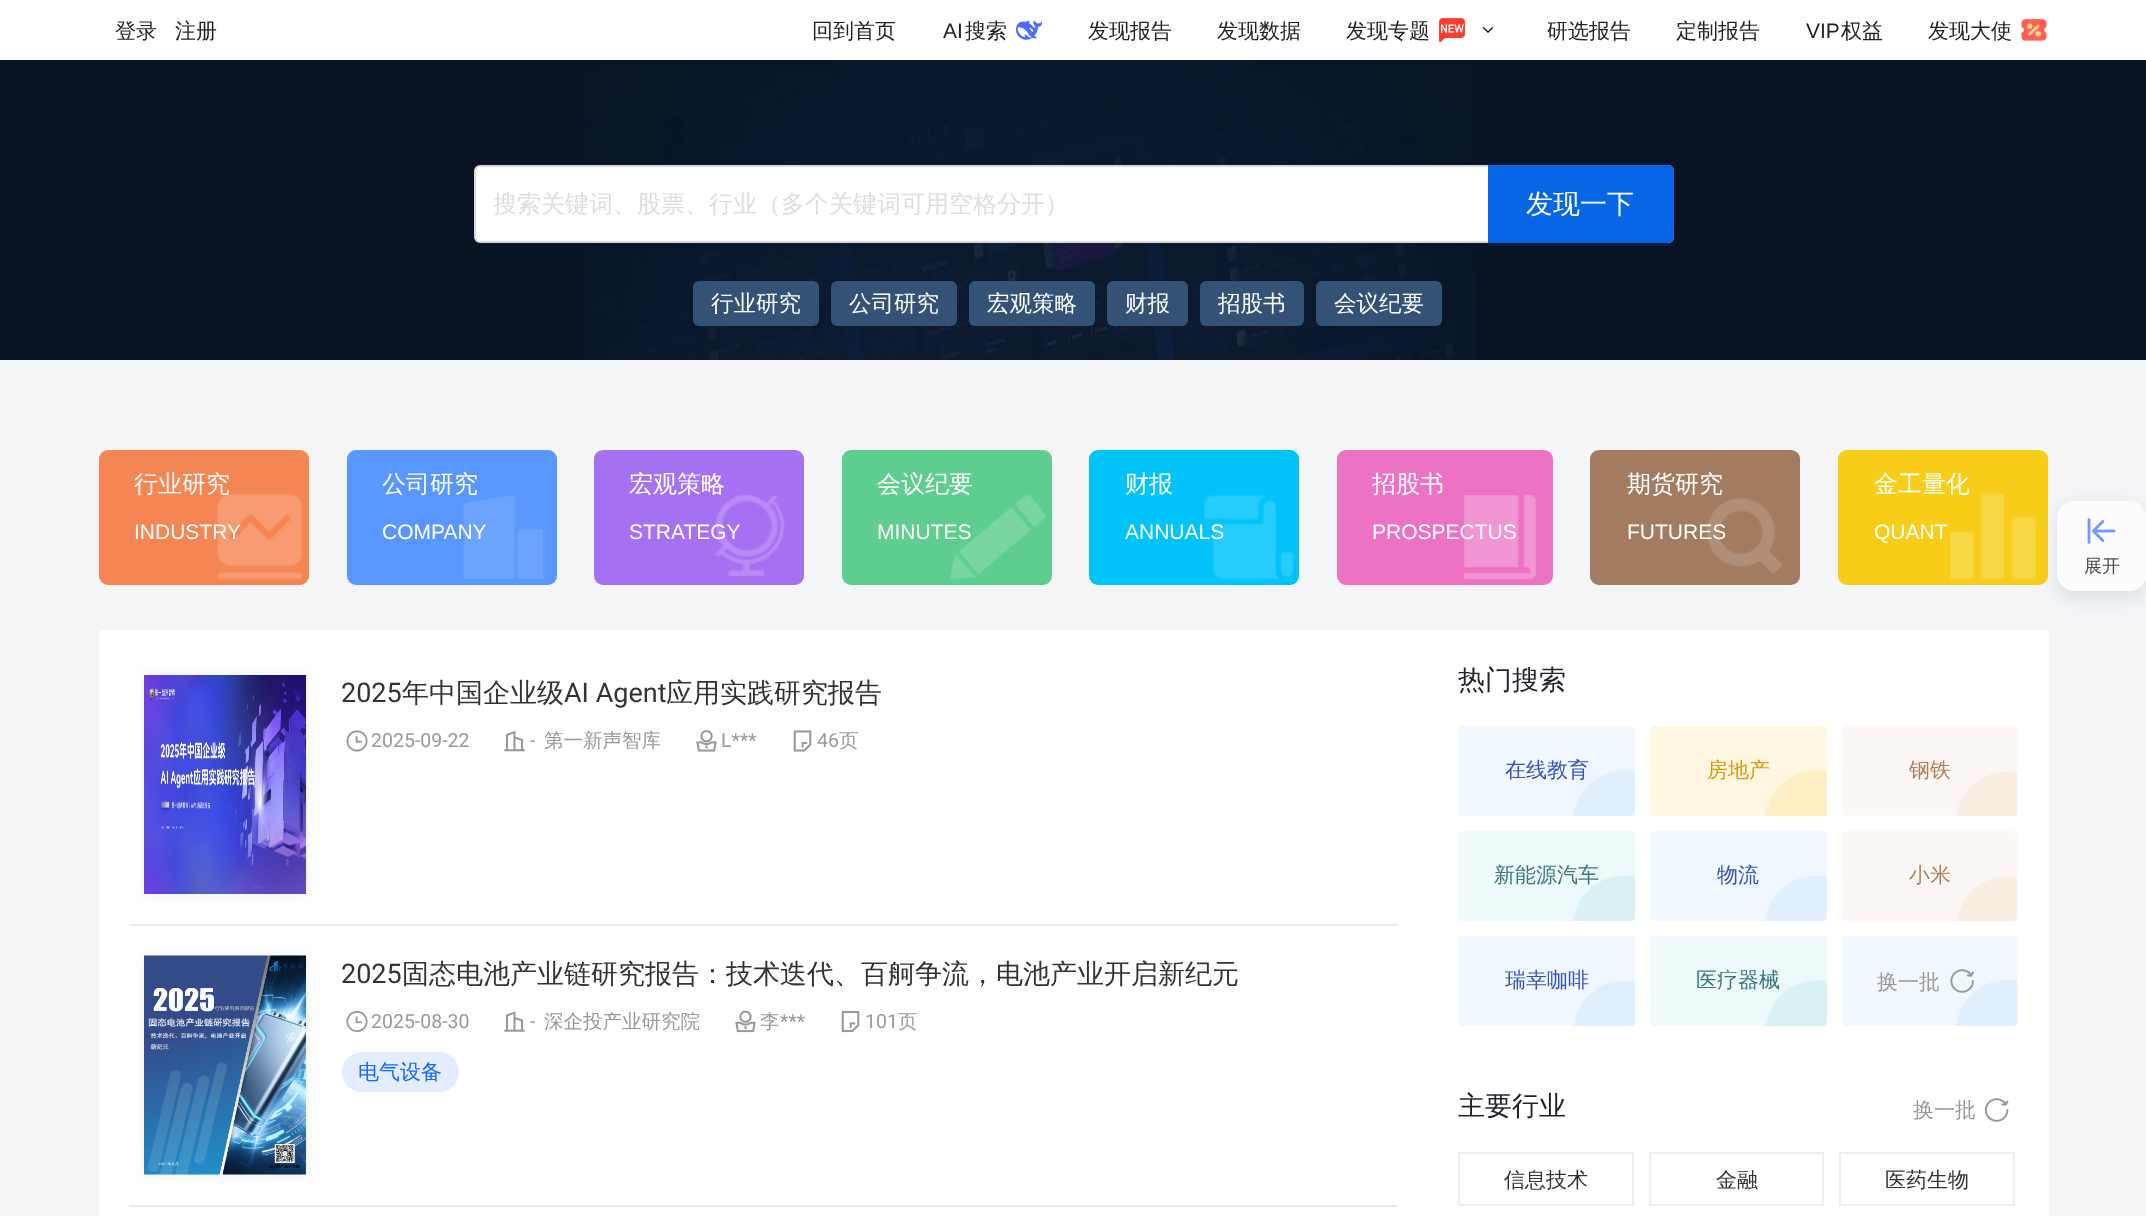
async function draw(canvas) {
	canvas.width = 2146;
	canvas.height = 1216;
	const c = canvas.getContext('2d');
	c.miterLimit = 4;
	c.fontKerning = 'normal';
	async function loadImage(src) {
		const img = new Image();
		img.src = src;
		await img.decode();
		return img;
	}

	c.fillStyle = '#f3f5f7';
	c.fillRect(0, 0, 2146, 1216);
	c.fillStyle = '#fff';
	c.fillRect(0, 0, 2146, 60);
	c.font = '500 21px WenQuanYi Zen Hei';
	c.fillStyle = '#222';
	for (const [text, x, y] of [
		['登录', 115, 38],
		['注册', 175, 38],
		['回到首页', 812, 38],
	]) {
		c.fillText(text, x, y);
	}
	c.font = '21px Liberation Sans';
	c.fillText('AI', 943, 38);
	c.font = '500 21px WenQuanYi Zen Hei';
	c.fillText('搜索', 965, 38);
	c.drawImage(await loadImage('img1.png'), 1016, 20, 27, 20);
	for (const [text, x, y] of [
		['发现报告', 1088, 38],
		['发现数据', 1217, 38],
		['发现专题', 1346, 38],
	]) {
		c.fillText(text, x, y);
	}
	c.drawImage(await loadImage('img2.png'), 1439, 18, 26, 24);
	c.drawImage(await loadImage('img3.png'), 1482, 27, 12, 6);
	c.fillText('研选报告', 1547, 38);
	c.fillText('定制报告', 1676, 38);
	c.font = '21px Liberation Sans';
	c.fillText('VIP', 1806, 38);
	c.font = '500 21px WenQuanYi Zen Hei';
	c.fillText('权益', 1841, 38);
	c.fillText('发现大使', 1928, 38);
	c.drawImage(await loadImage('img4.png'), 2021, 18, 27, 24);
	c.fillStyle = '#081424';
	c.fillRect(0, 60, 2146, 300);
	c.drawImage(await loadImage('img5.png'), 583, 60, 892, 300);
	c.fillStyle = '#fff';
	c.beginPath();
	c.roundRect(475, 166, 1198, 76, 5);
	c.fill();
	c.strokeStyle = '#d9d9d9';
	c.lineWidth = 2;
	c.stroke();
	c.save();
	c.beginPath();
	c.rect(494, 189, 930, 32);
	c.clip();
	c.font = '500 24px WenQuanYi Zen Hei';
	c.fillStyle = '#ddd';
	c.fillText('搜索关键词、股票、行业（多个关键词可用空格分开）', 493, 212);
	c.restore();
	c.fillStyle = '#0591ff1a';
	c.beginPath();
	c.moveTo(1488, 243);
	c.lineTo(1488, 246);
	c.lineTo(1668, 246);
	c.bezierCurveTo(1671, 246, 1674, 243, 1674, 240);
	c.lineTo(1674, 237);
	c.bezierCurveTo(1674, 240, 1671, 243, 1668, 243);
	c.closePath();
	c.fill();
	c.fillStyle = '#0666e5';
	c.beginPath();
	c.roundRect(1488, 165, 186, 78, [0, 6, 6, 0]);
	c.fill();
	c.font = '500 27px WenQuanYi Zen Hei';
	c.fillStyle = '#fff';
	c.fillText('发现一下', 1526, 213);
	c.fillStyle = '#335275';
	c.beginPath();
	c.roundRect(693, 281, 126, 45, 6);
	c.fill();
	c.font = '500 22.5px WenQuanYi Zen Hei';
	c.fillStyle = '#fff';
	c.fillText('行业研究', 711, 311);
	c.fillStyle = '#335275';
	c.beginPath();
	c.roundRect(831, 281, 126, 45, 6);
	c.fill();
	c.fillStyle = '#fff';
	c.fillText('公司研究', 849, 311);
	c.fillStyle = '#335275';
	c.beginPath();
	c.roundRect(969, 281, 126, 45, 6);
	c.fill();
	c.fillStyle = '#fff';
	c.fillText('宏观策略', 987, 311);
	c.fillStyle = '#335275';
	c.beginPath();
	c.roundRect(1107, 281, 81, 45, 6);
	c.fill();
	c.fillStyle = '#fff';
	c.fillText('财报', 1125, 311);
	c.fillStyle = '#335275';
	c.beginPath();
	c.roundRect(1200, 281, 104, 45, 6);
	c.fill();
	c.fillStyle = '#fff';
	c.fillText('招股书', 1218, 311);
	c.fillStyle = '#335275';
	c.beginPath();
	c.roundRect(1316, 281, 126, 45, 6);
	c.fill();
	c.fillStyle = '#fff';
	c.fillText('会议纪要', 1334, 311);
	c.fillStyle = '#f58654';
	c.beginPath();
	c.roundRect(99, 450, 210, 135, 9);
	c.fill();
	c.drawImage(await loadImage('img6.png'), 217, 493, 85, 87);
	c.font = '500 24px WenQuanYi Zen Hei';
	c.fillStyle = '#fff';
	c.fillText('行业研究', 134, 492);
	c.font = '21px Liberation Sans';
	c.fillText('INDUSTRY', 134, 539);
	c.fillStyle = '#5897ff';
	c.beginPath();
	c.roundRect(347, 450, 210, 135, 9);
	c.fill();
	c.drawImage(await loadImage('img7.png'), 463, 495, 81, 84);
	c.font = '500 24px WenQuanYi Zen Hei';
	c.fillStyle = '#fff';
	c.fillText('公司研究', 382, 492);
	c.font = '21px Liberation Sans';
	c.fillText('COMPANY', 382, 539);
	c.fillStyle = '#a570f2';
	c.beginPath();
	c.roundRect(594, 450, 210, 135, 9);
	c.fill();
	c.drawImage(await loadImage('img8.png'), 715, 495, 70, 82);
	c.font = '500 24px WenQuanYi Zen Hei';
	c.fillStyle = '#fff';
	c.fillText('宏观策略', 629, 492);
	c.font = '21px Liberation Sans';
	c.fillText('STRATEGY', 629, 539);
	c.fillStyle = '#5dce8d';
	c.beginPath();
	c.roundRect(842, 450, 210, 135, 9);
	c.fill();
	c.drawImage(await loadImage('img9.png'), 949, 495, 97, 85);
	c.font = '500 24px WenQuanYi Zen Hei';
	c.fillStyle = '#fff';
	c.fillText('会议纪要', 877, 492);
	c.font = '21px Liberation Sans';
	c.fillText('MINUTES', 877, 539);
	c.fillStyle = '#00c4f9';
	c.beginPath();
	c.roundRect(1089, 450, 210, 135, 9);
	c.fill();
	c.drawImage(await loadImage('img10.png'), 1204, 495, 90, 85);
	c.font = '500 24px WenQuanYi Zen Hei';
	c.fillStyle = '#fff';
	c.fillText('财报', 1125, 492);
	c.font = '21px Liberation Sans';
	c.fillText('ANNUALS', 1125, 539);
	c.fillStyle = '#ed72c4';
	c.beginPath();
	c.roundRect(1337, 450, 216, 135, 9);
	c.fill();
	c.drawImage(await loadImage('img11.png'), 1463, 495, 74, 85);
	c.font = '500 24px WenQuanYi Zen Hei';
	c.fillStyle = '#fff';
	c.fillText('招股书', 1372, 492);
	c.font = '21px Liberation Sans';
	c.fillText('PROSPECTUS', 1372, 539);
	c.fillStyle = '#a37b61';
	c.beginPath();
	c.roundRect(1590, 450, 210, 135, 9);
	c.fill();
	c.drawImage(await loadImage('img12.png'), 1707, 498, 76, 77);
	c.font = '500 24px WenQuanYi Zen Hei';
	c.fillStyle = '#fff';
	c.fillText('期货研究', 1627, 492);
	c.font = '21px Liberation Sans';
	c.fillText('FUTURES', 1627, 539);
	c.fillStyle = '#f7cd18';
	c.beginPath();
	c.roundRect(1838, 450, 210, 135, 9);
	c.fill();
	c.drawImage(await loadImage('img13.png'), 1949, 493, 87, 87);
	c.font = '500 24px WenQuanYi Zen Hei';
	c.fillStyle = '#fff';
	c.fillText('金工量化', 1874, 492);
	c.font = '21px Liberation Sans';
	c.fillText('QUANT', 1874, 539);
	c.fillRect(99, 630, 1950, 586);
	c.fillStyle = '#e9e9e9';
	c.fillRect(129, 924, 1269, 2);
	c.fillStyle = '#27426b1a';
	c.filter = 'blur(6px)';
	c.beginPath();
	c.rect(144, 675, 162, 219);
	c.fill();
	c.filter = 'none';
	c.drawImage(await loadImage('img14.png'), 144, 675, 162, 219);
	c.font = '27px Roboto';
	c.fillStyle = '#333';
	c.fillText('2025', 341, 702);
	c.font = '500 27px WenQuanYi Zen Hei';
	c.fillText('年中国企业级', 402, 702);
	c.font = '27px Roboto';
	c.fillText('AI Agent', 564, 702);
	c.font = '500 27px WenQuanYi Zen Hei';
	c.fillText('应用实践研究报告', 666, 702);
	c.drawImage(await loadImage('img15.png'), 346, 730, 22, 22);
	c.font = '19.5px Roboto';
	c.fillStyle = '#999';
	c.fillText('2025-09-22', 371, 747);
	c.drawImage(await loadImage('img16.png'), 504, 730, 21, 22);
	c.fillText('-', 530, 747);
	c.font = '500 19.5px WenQuanYi Zen Hei';
	c.fillText('第一新声智库', 544, 747);
	c.drawImage(await loadImage('img17.png'), 696, 730, 21, 22);
	c.font = '19.5px Roboto';
	c.fillText('L***', 721, 747);
	c.drawImage(await loadImage('img18.png'), 793, 730, 19, 22);
	c.fillText('46', 817, 747);
	c.font = '500 19.5px WenQuanYi Zen Hei';
	c.fillText('页', 839, 747);
	c.fillStyle = '#e9e9e9';
	c.fillRect(129, 1205, 1269, 2);
	c.fillStyle = '#27426b1a';
	c.filter = 'blur(6px)';
	c.beginPath();
	c.rect(144, 956, 162, 219);
	c.fill();
	c.filter = 'none';
	c.drawImage(await loadImage('img19.png'), 144, 955, 162, 220);
	c.font = '27px Roboto';
	c.fillStyle = '#333';
	c.fillText('2025', 341, 983);
	c.font = '500 27px WenQuanYi Zen Hei';
	c.fillText('固态电池产业链研究报告：技术迭代、百舸争流，电池产业开启新纪元', 402, 983);
	c.drawImage(await loadImage('img20.png'), 346, 1010, 22, 22);
	c.font = '19.5px Roboto';
	c.fillStyle = '#999';
	c.fillText('2025-08-30', 371, 1028);
	c.drawImage(await loadImage('img21.png'), 504, 1011, 21, 21);
	c.fillText('-', 530, 1028);
	c.font = '500 19.5px WenQuanYi Zen Hei';
	c.fillText('深企投产业研究院', 544, 1028);
	c.drawImage(await loadImage('img22.png'), 735, 1010, 21, 23);
	c.fillText('李', 760, 1028);
	c.font = '19.5px Roboto';
	c.fillText('***', 780, 1028);
	c.drawImage(await loadImage('img23.png'), 841, 1010, 19, 23);
	c.fillText('101', 865, 1028);
	c.font = '500 19.5px WenQuanYi Zen Hei';
	c.fillText('页', 898, 1028);
	c.fillStyle = '#e4edff';
	c.beginPath();
	c.roundRect(342, 1052, 117, 40, 20);
	c.fill();
	c.font = '500 21px WenQuanYi Zen Hei';
	c.fillStyle = '#1567fd';
	c.fillText('电气设备', 358, 1079);
	c.font = '500 27px WenQuanYi Zen Hei';
	c.fillStyle = '#1f2329';
	c.fillText('热门搜索', 1458, 689);
	c.drawImage(await loadImage('img24.png'), 1458, 726, 177, 90);
	c.font = '500 21px WenQuanYi Zen Hei';
	c.fillStyle = '#3853b6';
	c.fillText('在线教育', 1505, 777);
	c.drawImage(await loadImage('img25.png'), 1650, 726, 177, 90);
	c.fillStyle = '#dd9808';
	c.fillText('房地产', 1707, 777);
	c.drawImage(await loadImage('img26.png'), 1842, 726, 176, 90);
	c.fillStyle = '#af8159';
	c.fillText('钢铁', 1909, 777);
	c.drawImage(await loadImage('img27.png'), 1458, 831, 177, 90);
	c.fillStyle = '#3a777d';
	c.fillText('新能源汽车', 1494, 882);
	c.drawImage(await loadImage('img24.png'), 1650, 831, 177, 90);
	c.fillStyle = '#3853b6';
	c.fillText('物流', 1717, 882);
	c.drawImage(await loadImage('img26.png'), 1842, 831, 176, 90);
	c.fillStyle = '#af8159';
	c.fillText('小米', 1909, 882);
	c.drawImage(await loadImage('img24.png'), 1458, 936, 177, 90);
	c.fillStyle = '#3853b6';
	c.fillText('瑞幸咖啡', 1505, 987);
	c.drawImage(await loadImage('img27.png'), 1650, 936, 177, 90);
	c.fillStyle = '#3a777d';
	c.fillText('医疗器械', 1696, 987);
	c.drawImage(await loadImage('img28.png'), 1842, 936, 176, 90);
	c.fillStyle = '#999';
	c.fillText('换一批', 1877, 989);
	c.drawImage(await loadImage('img29.png'), 1950, 969, 24, 24);
	c.font = '500 27px WenQuanYi Zen Hei';
	c.fillStyle = '#1f2329';
	c.fillText('主要行业', 1458, 1115);
	c.font = '500 21px WenQuanYi Zen Hei';
	c.fillStyle = '#999';
	c.fillText('换一批', 1913, 1117);
	c.drawImage(await loadImage('img30.png'), 1984, 1098, 25, 24);
	c.strokeStyle = '#eee';
	c.strokeRect(1459, 1153, 174, 52);
	c.fillStyle = '#333';
	c.fillText('信息技术', 1504, 1187);
	c.strokeRect(1650, 1153, 173, 52);
	c.fillText('金融', 1716, 1187);
	c.strokeRect(1840, 1153, 174, 52);
	c.fillText('医药生物', 1885, 1187);
	c.save();
	c.beginPath();
	c.moveTo(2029, 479);
	c.lineTo(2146, 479);
	c.lineTo(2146, 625);
	c.lineTo(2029, 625);
	c.closePath();
	c.moveTo(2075, 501);
	c.lineTo(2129, 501);
	c.bezierCurveTo(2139, 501, 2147, 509, 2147, 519);
	c.lineTo(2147, 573);
	c.bezierCurveTo(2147, 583, 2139, 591, 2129, 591);
	c.lineTo(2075, 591);
	c.bezierCurveTo(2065, 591, 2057, 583, 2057, 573);
	c.lineTo(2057, 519);
	c.bezierCurveTo(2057, 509, 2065, 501, 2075, 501);
	c.closePath();
	c.clip('evenodd');
	c.fillStyle = '#bfc7d880';
	c.filter = 'blur(9px)';
	c.beginPath();
	c.roundRect(2057, 507, 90, 90, 18);
	c.fill();
	c.filter = 'none';
	c.restore();
	c.fillStyle = '#ffffffb3';
	c.beginPath();
	c.roundRect(2057, 501, 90, 90, 18);
	c.fill();
	c.drawImage(await loadImage('img31.png'), 2087, 518, 29, 26);
	c.font = '500 18px WenQuanYi Zen Hei';
	c.fillStyle = '#494a4a';
	c.fillText('展开', 2084, 572);
}

draw(document.querySelector('canvas'));
